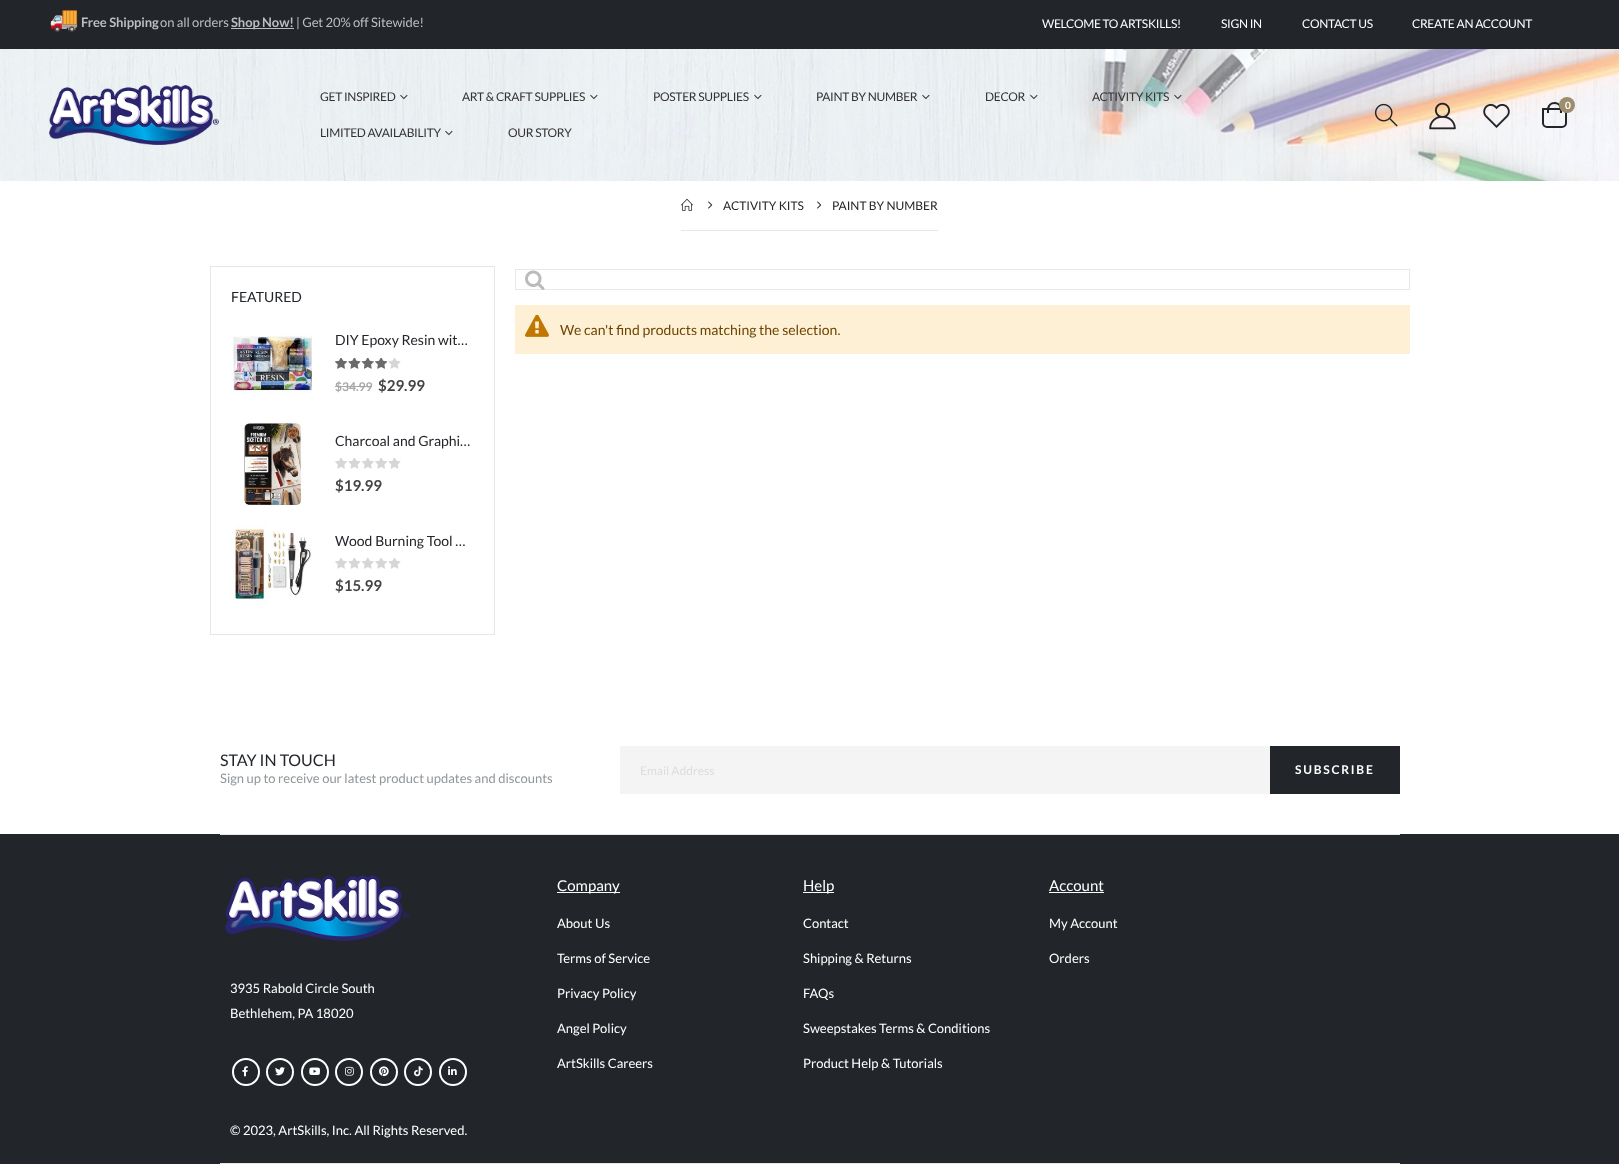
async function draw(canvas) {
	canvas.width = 1619;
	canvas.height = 1164;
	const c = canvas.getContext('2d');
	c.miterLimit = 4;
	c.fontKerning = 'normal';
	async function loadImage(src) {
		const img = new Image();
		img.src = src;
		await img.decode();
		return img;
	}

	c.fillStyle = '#fff';
	c.fillRect(0, 0, 1619, 1164);
	c.drawImage(await loadImage('img1.png'), 0, 49, 1619, 132);
	c.fillStyle = '#222529';
	c.fillRect(0, 0, 1619, 49);
	c.letterSpacing = '-0.1px';
	c.font = '24px Noto Color Emoji';
	c.fillStyle = '#bdbebf';
	c.fillText('🚚', 49, 27);
	c.font = 'bold 13px Lato';
	c.fillText('Free Shipping', 81, 27);
	c.font = '13px Lato';
	c.fillText('on all orders', 160, 27);
	c.fillRect(231, 28, 63, 1);
	c.font = 'bold 13px Lato';
	c.fillText('Shop Now!', 231, 27);
	c.font = '13px Lato';
	c.fillText('| Get 20% off Sitewide!', 296, 27);
	c.letterSpacing = '-0.3px';
	c.font = '12px Lato';
	c.fillStyle = '#fff';
	for (const [text, x, y] of [
		['WELCOME TO ARTSKILLS!', 1042, 28],
		['SIGN IN', 1221, 28],
		['CONTACT US', 1302, 28],
		['CREATE AN ACCOUNT', 1412, 28],
	]) {
		c.fillText(text, x, y);
	}
	c.drawImage(await loadImage('img2.png'), 49, 85, 170, 60);
	c.fillStyle = '#333';
	c.fillText('GET INSPIRED', 320, 101);
	c.drawImage(await loadImage('img3.png'), 400, 94, 8, 6);
	c.fillText('ART & CRAFT SUPPLIES', 462, 101);
	c.drawImage(await loadImage('img4.png'), 590, 94, 8, 6);
	c.fillText('POSTER SUPPLIES', 653, 101);
	c.drawImage(await loadImage('img5.png'), 754, 94, 8, 6);
	c.fillText('PAINT BY NUMBER', 816, 101);
	c.drawImage(await loadImage('img6.png'), 922, 94, 8, 6);
	c.fillText('DECOR', 985, 101);
	c.drawImage(await loadImage('img7.png'), 1030, 94, 8, 6);
	c.fillText('ACTIVITY KITS', 1092, 101);
	c.drawImage(await loadImage('img8.png'), 1174, 94, 8, 6);
	c.fillText('LIMITED AVAILABILITY', 320, 137);
	c.drawImage(await loadImage('img9.png'), 445, 130, 8, 6);
	c.fillText('OUR STORY', 508, 137);
	c.drawImage(await loadImage('img10.png'), 1374, 103, 24, 24);
	c.drawImage(await loadImage('img11.png'), 1429, 102, 27, 28);
	c.drawImage(await loadImage('img12.png'), 1483, 103, 27, 25);
	c.beginPath();
	c.roundRect(1543, 109, 23, 18, [0, 0, 4, 4]);
	c.strokeStyle = '#222529';
	c.lineWidth = 2;
	c.stroke();
	c.fillStyle = '#222529';
	c.beginPath();
	c.moveTo(1554.5, 102);
	c.bezierCurveTo(1558.5, 102, 1562, 105.5, 1562, 109.5);
	c.lineTo(1562, 113);
	c.lineTo(1547, 113);
	c.lineTo(1547, 109.5);
	c.bezierCurveTo(1547, 105.5, 1550.5, 102, 1554.5, 102);
	c.closePath();
	c.moveTo(1554.5, 104);
	c.bezierCurveTo(1560, 104, 1560, 109, 1560, 113);
	c.lineTo(1549, 113);
	c.bezierCurveTo(1549, 109, 1549, 104, 1554.5, 104);
	c.closePath();
	c.fill('evenodd');
	c.fillStyle = '#9d8d6c';
	c.beginPath();
	c.arc(1567, 105, 8, 0, 2 * Math.PI);
	c.fill();
	c.letterSpacing = '0px';
	c.font = 'bold 10px Lato';
	c.fillStyle = '#fff';
	c.fillText('0', 1565, 109);
	c.drawImage(await loadImage('img13.png'), 681, 198, 12, 13);
	c.drawImage(await loadImage('img14.png'), 708, 201, 5, 8);
	c.font = '12px Lato';
	c.fillStyle = '#222529';
	c.fillText('ACTIVITY KITS', 723, 210);
	c.drawImage(await loadImage('img14.png'), 817, 201, 5, 8);
	c.fillText('PAINT BY NUMBER', 832, 210);
	c.fillStyle = '#e7e7e7';
	c.fillRect(681, 230, 257, 1);
	c.strokeStyle = '#e7e7e7';
	c.lineWidth = 1;
	c.strokeRect(210.5, 266.5, 284, 368);
	c.font = '14px Lato';
	c.fillStyle = '#222529';
	c.fillText('FEATURED', 231, 302);
	c.drawImage(await loadImage('img15.png'), 231, 331, 81, 63);
	c.fillText('DIY Epoxy Resin wit…', 335, 345);
	c.drawImage(await loadImage('img16.png'), 335, 358, 66, 11);
	c.drawImage(await loadImage('img17.png'), 335, 358, 52, 11);
	c.font = 'bold 12px Lato';
	c.fillStyle = '#a7a7a7';
	c.fillText('$34.99', 335, 391);
	c.fillRect(335, 386, 37, 1);
	c.font = 'bold 15px Lato';
	c.fillStyle = '#444';
	c.fillText('$29.99', 378, 391);
	c.drawImage(await loadImage('img18.png'), 240, 422, 63, 84);
	c.font = '14px Lato';
	c.fillStyle = '#222529';
	c.fillText('Charcoal and Graphi…', 335, 446);
	c.drawImage(await loadImage('img16.png'), 335, 458, 66, 11);
	c.font = 'bold 15px Lato';
	c.fillStyle = '#444';
	c.fillText('$19.99', 335, 491);
	c.drawImage(await loadImage('img19.png'), 231, 523, 81, 80);
	c.font = '14px Lato';
	c.fillStyle = '#222529';
	c.fillText('Wood Burning Tool …', 335, 546);
	c.drawImage(await loadImage('img16.png'), 335, 558, 66, 11);
	c.font = 'bold 15px Lato';
	c.fillStyle = '#444';
	c.fillText('$15.99', 335, 591);
	c.strokeStyle = '#e8e8e8';
	c.strokeRect(515.5, 269.5, 894, 20);
	c.drawImage(await loadImage('img20.png'), 525, 270, 20, 20);
	c.fillStyle = '#fdf0d5';
	c.fillRect(515, 305, 895, 49);
	c.drawImage(await loadImage('img21.png'), 525, 315, 24, 22);
	c.font = '14px Lato';
	c.fillStyle = '#6f4400';
	c.fillText('We can\'t find products matching the selection.', 560, 335);
	c.font = '16px Lato';
	c.fillStyle = '#222529';
	c.fillText('STAY IN TOUCH', 220, 766);
	c.font = '13px Lato';
	c.fillStyle = '#90969a';
	c.fillText('Sign up to receive our latest product updates and discounts', 220, 783);
	c.fillStyle = '#f4f4f4';
	c.fillRect(620, 746, 650, 48);
	c.font = '12px Lato';
	c.fillStyle = '#ddd';
	c.fillText('Email Address', 640, 775);
	c.fillStyle = '#222529';
	c.fillRect(1270, 746, 130, 48);
	c.letterSpacing = '1.75px';
	c.font = 'bold 12px Lato';
	c.fillStyle = '#fff';
	c.fillText('SUBSCRIBE', 1295, 774);
	for (const [x, y, w, h, color] of [
		[0, 834, 1619, 330, '#222529'],
		[220, 834, 1180, 1, '#e7e7e7'],
		[557, 892, 63, 1, '#fff'],
	]) {
		c.fillStyle = color;
		c.fillRect(x, y, w, h);
	}
	c.letterSpacing = '0px';
	c.font = '15px Lato';
	c.fillText('Company', 557, 891);
	c.font = '13px Lato';
	for (const [text, x, y] of [
		['About Us', 557, 928],
		['Terms of Service', 557, 963],
		['Privacy Policy', 557, 998],
		['Angel Policy', 557, 1033],
		['ArtSkills Careers', 557, 1068],
	]) {
		c.fillText(text, x, y);
	}
	c.fillRect(803, 892, 31, 1);
	c.font = '15px Lato';
	c.fillText('Help', 803, 891);
	c.font = '13px Lato';
	for (const [text, x, y] of [
		['Contact', 803, 928],
		['Shipping & Returns', 803, 963],
		['FAQs', 803, 998],
		['Sweepstakes Terms & Conditions', 803, 1033],
		['Product Help & Tutorials', 803, 1068],
	]) {
		c.fillText(text, x, y);
	}
	c.font = '15px Lato';
	c.fillText('Account', 1049, 891);
	c.fillRect(1049, 892, 55, 1);
	c.font = '13px Lato';
	c.fillText('My Account', 1049, 928);
	c.fillText('Orders', 1049, 963);
	c.drawImage(await loadImage('img22.png'), 225, 875, 184, 66);
	c.fillText('3935 Rabold Circle South', 230, 993);
	c.fillText('Bethlehem, PA 18020', 230, 1018);
	c.beginPath();
	c.arc(246, 1072, 13, 0, 2 * Math.PI);
	c.strokeStyle = '#fff';
	c.lineWidth = 2;
	c.stroke();
	c.drawImage(await loadImage('img23.png'), 242, 1066, 6, 11);
	c.beginPath();
	c.arc(280, 1072, 13, 0, 2 * Math.PI);
	c.stroke();
	c.drawImage(await loadImage('img24.png'), 275, 1067, 10, 9);
	c.beginPath();
	c.arc(315, 1072, 13, 0, 2 * Math.PI);
	c.stroke();
	c.drawImage(await loadImage('img25.png'), 309, 1067, 11, 8);
	c.beginPath();
	c.arc(349, 1072, 13, 0, 2 * Math.PI);
	c.stroke();
	c.drawImage(await loadImage('img26.png'), 345, 1066, 9, 10);
	c.beginPath();
	c.arc(384, 1072, 13, 0, 2 * Math.PI);
	c.stroke();
	c.drawImage(await loadImage('img27.png'), 379, 1066, 10, 11);
	c.beginPath();
	c.arc(418, 1072, 13, 0, 2 * Math.PI);
	c.stroke();
	c.drawImage(await loadImage('img28.png'), 414, 1066, 9, 11);
	c.beginPath();
	c.arc(453, 1072, 13, 0, 2 * Math.PI);
	c.stroke();
	c.drawImage(await loadImage('img29.png'), 448, 1066, 9, 9);
	c.fillText('© 2023, ArtSkills, Inc. All Rights Reserved.', 230, 1135);
	c.fillStyle = '#e7e7e7';
	c.fillRect(220, 1163, 1180, 1);
}

draw(document.querySelector('canvas'));
